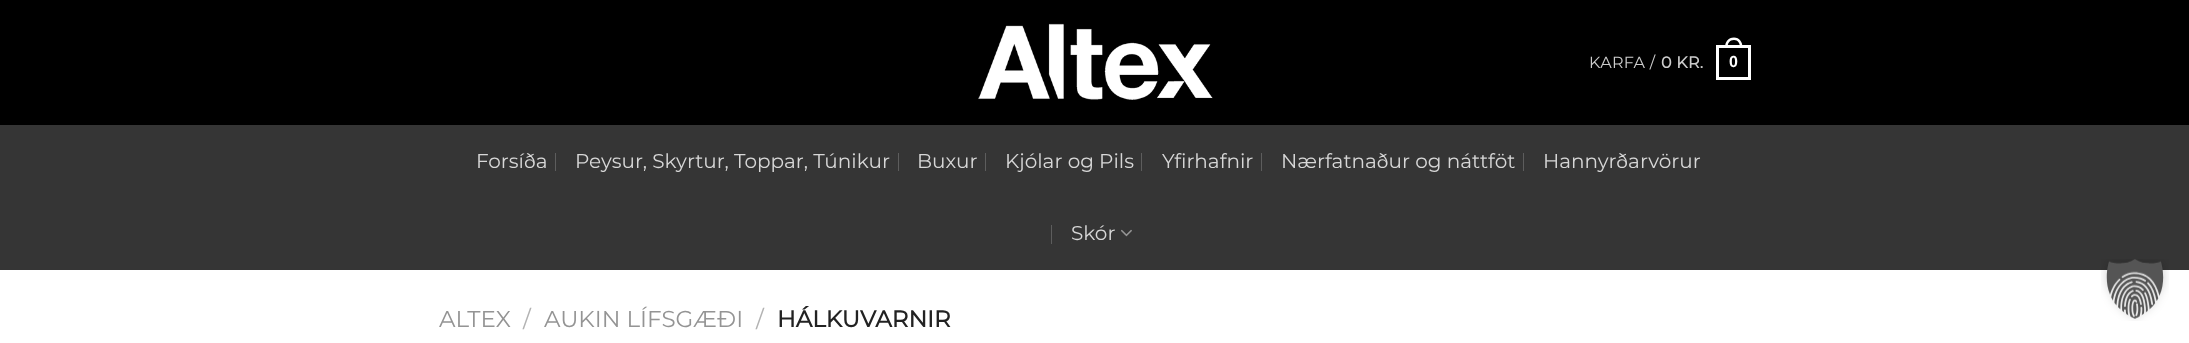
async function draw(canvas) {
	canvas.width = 2189;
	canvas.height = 343;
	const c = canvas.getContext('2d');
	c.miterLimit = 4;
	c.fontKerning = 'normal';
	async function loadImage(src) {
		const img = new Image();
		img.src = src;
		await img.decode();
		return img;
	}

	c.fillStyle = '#fff';
	c.fillRect(0, 0, 2189, 343);
	c.fillStyle = '#000';
	c.fillRect(0, 0, 2189, 125);
	c.drawImage(await loadImage('img1.png'), 978, 23, 235, 77);
	c.letterSpacing = '0.25px';
	c.font = '100 16px Montserrat';
	c.fillStyle = '#ccc';
	c.fillText('KARFA /', 1589, 68);
	c.font = 'bold 16px Montserrat';
	c.fillText('0 KR.', 1661, 68);
	c.strokeStyle = '#fff';
	c.lineWidth = 3;
	c.strokeRect(1717.5, 46.5, 32, 32);
	c.fillStyle = '#fff';
	c.beginPath();
	c.moveTo(1734, 37.5);
	c.bezierCurveTo(1739.5, 37.5, 1742.5, 42, 1742.5, 47.5);
	c.lineTo(1725, 47.5);
	c.bezierCurveTo(1725, 42, 1728, 37.5, 1734, 37.5);
	c.closePath();
	c.moveTo(1734, 40);
	c.bezierCurveTo(1738, 40, 1740, 43.5, 1740, 47.5);
	c.lineTo(1727.5, 47.5);
	c.bezierCurveTo(1727.5, 43.5, 1729.5, 40, 1734, 40);
	c.closePath();
	c.fill('evenodd');
	c.font = 'bold 16px Liberation Sans';
	c.fillText('0', 1729, 67);
	c.fillStyle = '#353535';
	c.fillRect(0, 125, 2189, 145);
	c.letterSpacing = '0px';
	c.font = '100 20px Montserrat';
	c.fillStyle = '#d7d7d7';
	c.fillText('Forsíða', 476, 168);
	c.fillStyle = '#5d5d5d';
	c.fillRect(555, 153, 1, 18);
	c.fillStyle = '#d7d7d7';
	c.fillText('Peysur, Skyrtur, Toppar, Túnikur', 575, 168);
	c.fillStyle = '#5d5d5d';
	c.fillRect(898, 153, 1, 18);
	c.fillStyle = '#d7d7d7';
	c.fillText('Buxur', 917, 168);
	c.fillStyle = '#5d5d5d';
	c.fillRect(985, 153, 1, 18);
	c.fillStyle = '#d7d7d7';
	c.fillText('Kjólar og Pils', 1005, 168);
	c.fillStyle = '#5d5d5d';
	c.fillRect(1141, 153, 1, 18);
	c.fillStyle = '#d7d7d7';
	c.fillText('Yfirhafnir', 1162, 168);
	c.fillStyle = '#5d5d5d';
	c.fillRect(1261, 153, 1, 18);
	c.fillStyle = '#d7d7d7';
	c.fillText('Nærfatnaður og náttföt', 1281, 168);
	c.fillStyle = '#5d5d5d';
	c.fillRect(1523, 153, 1, 18);
	c.fillStyle = '#d7d7d7';
	c.fillText('Hannyrðarvörur', 1543, 168);
	c.fillStyle = '#5d5d5d';
	c.fillRect(1051, 225, 1, 19);
	c.fillStyle = '#d7d7d7';
	c.fillText('Skór', 1071, 240);
	c.drawImage(await loadImage('img2.png'), 1121, 229, 11, 8);
	c.font = '100 23px Montserrat';
	c.fillStyle = '#949494';
	c.fillText('ALTEX', 439, 327);
	c.fillStyle = '#b2b2b2';
	c.fillText('/', 523, 327);
	c.fillStyle = '#949494';
	c.fillText('AUKIN LÍFSGÆÐI', 544, 327);
	c.fillStyle = '#b2b2b2';
	c.fillText('/', 756, 327);
	c.font = 'bold 23px Montserrat';
	c.fillStyle = '#222';
	c.fillText('HÁLKUVARNIR', 777, 327);
	c.drawImage(await loadImage('img3.png'), 2101, 259, 68, 62);
}

draw(document.querySelector('canvas'));
